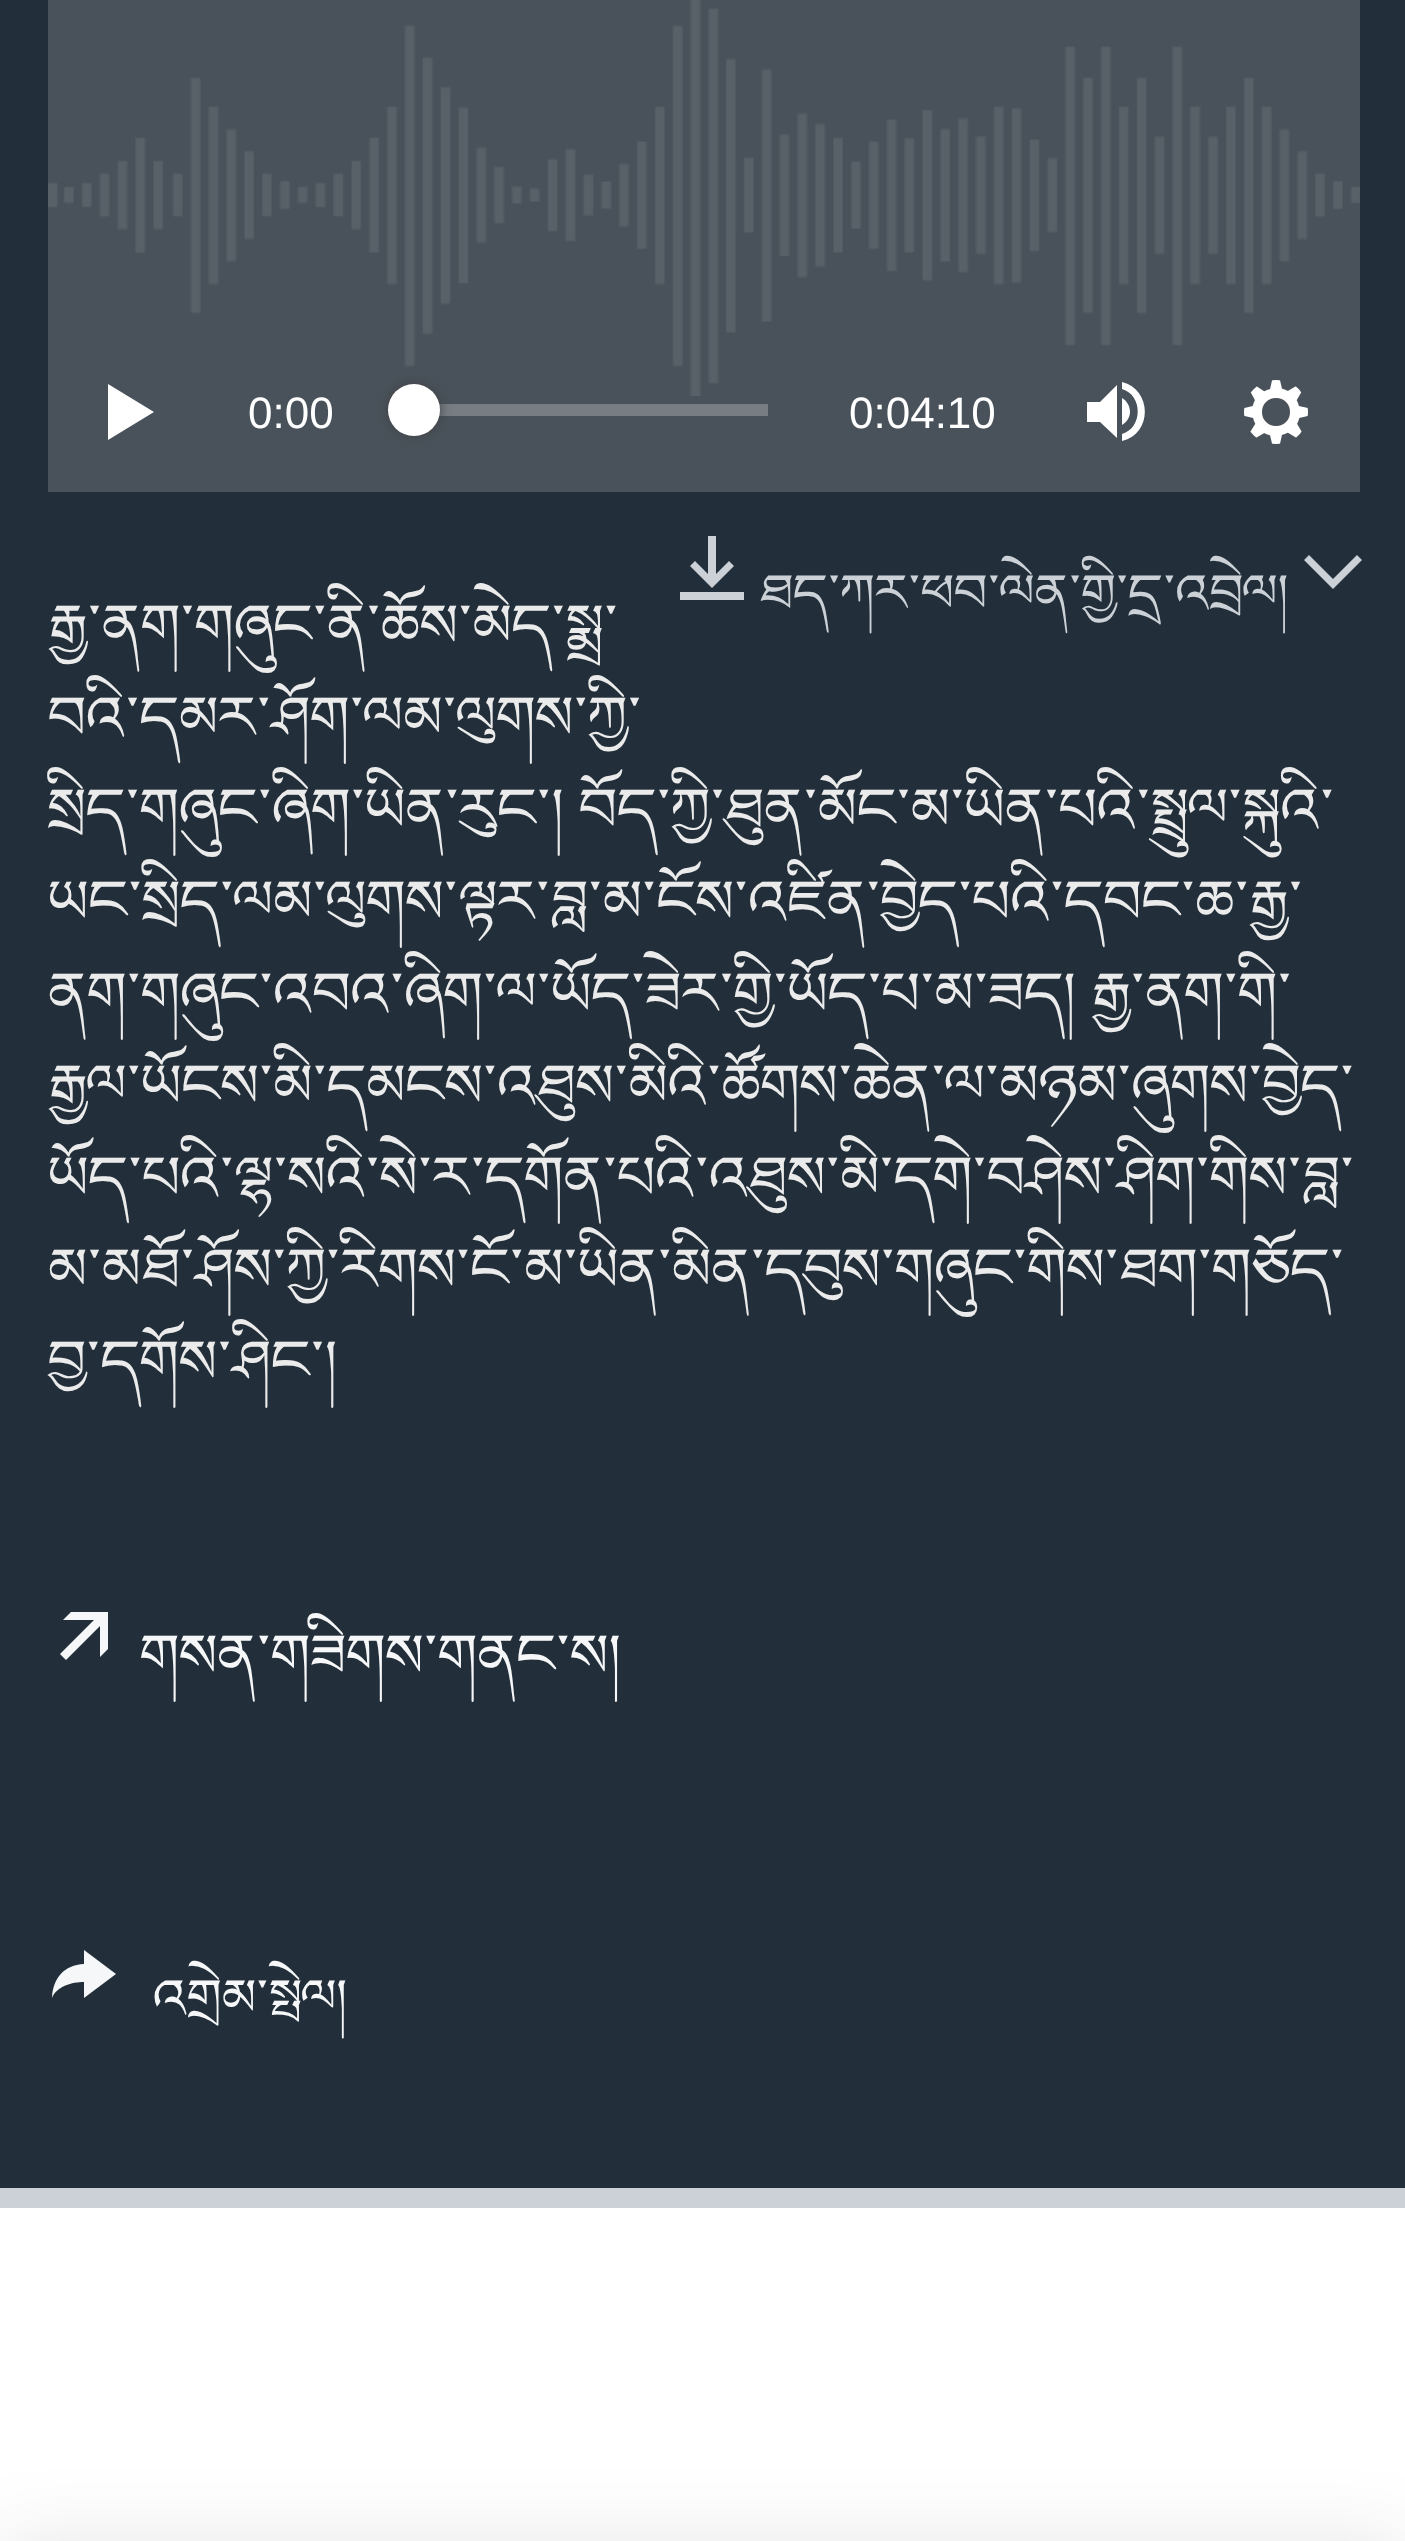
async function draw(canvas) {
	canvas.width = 1405;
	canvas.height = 2541;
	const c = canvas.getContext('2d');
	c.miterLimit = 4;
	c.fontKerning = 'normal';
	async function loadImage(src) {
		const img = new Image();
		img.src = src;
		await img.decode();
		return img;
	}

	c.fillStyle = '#fff';
	c.fillRect(0, 0, 1405, 2541);
	for (const [x, y, w, h, color] of [
		[0, 0, 1405, 2188, '#222f3a'],
		[0, 2188, 1405, 20, '#cbd1d6'],
		[48, 0, 1312, 492, '#49525a'],
	]) {
		c.fillStyle = color;
		c.fillRect(x, y, w, h);
	}
	c.drawImage(await loadImage('img1.png'), 48, 0, 1312, 396);
	c.fillStyle = '#fff';
	c.beginPath();
	c.moveTo(108, 440);
	c.lineTo(154, 412);
	c.lineTo(108, 384);
	c.closePath();
	c.fill();
	c.font = '44px Liberation Sans';
	c.fillText('0:00', 248, 428);
	c.fillStyle = '#777d83';
	c.fillRect(439, 404, 329, 12);
	c.fillStyle = '#414144';
	c.filter = 'blur(6px)';
	c.beginPath();
	c.roundRect(388, 384, 52, 52, 26);
	c.fill();
	c.filter = 'none';
	c.fillStyle = '#fff';
	c.beginPath();
	c.arc(414, 410, 26, 0, 2 * Math.PI);
	c.fill();
	c.fillText('0:04:10', 849, 428);
	c.beginPath();
	c.moveTo(1087, 402);
	c.lineTo(1087, 422);
	c.lineTo(1100, 422);
	c.lineTo(1117, 438);
	c.lineTo(1117, 385);
	c.lineTo(1100, 402);
	c.closePath();
	c.moveTo(1130, 412);
	c.bezierCurveTo(1130, 406, 1127, 401, 1122, 398);
	c.lineTo(1122, 425);
	c.bezierCurveTo(1127, 422, 1130, 417, 1130, 412);
	c.closePath();
	c.moveTo(1122, 382);
	c.lineTo(1122, 389);
	c.bezierCurveTo(1143, 395, 1143, 428, 1122, 434);
	c.lineTo(1122, 441);
	c.bezierCurveTo(1153, 434, 1152, 389, 1122, 382);
	c.closePath();
	c.fill();
	c.drawImage(await loadImage('img2.png'), 1244, 380, 64, 64);
	c.fillStyle = '#cbd1d6';
	c.beginPath();
	c.moveTo(744, 592);
	c.lineTo(744, 600);
	c.lineTo(680, 600);
	c.lineTo(680, 592);
	c.closePath();
	c.moveTo(734, 566);
	c.lineTo(729, 561);
	c.lineTo(716, 574);
	c.lineTo(716, 536);
	c.lineTo(708, 536);
	c.lineTo(708, 574);
	c.lineTo(695, 561);
	c.lineTo(690, 566);
	c.lineTo(712, 588);
	c.closePath();
	c.fill();
	c.font = '80.5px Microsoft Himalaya';
	c.fillText('ཐད་ཀར་ཕབ་ལེན་གྱི་དྲ་འབྲེལ།', 759, 602);
	c.beginPath();
	c.moveTo(1304, 560);
	c.lineTo(1333, 589);
	c.lineTo(1362, 560);
	c.lineTo(1357, 555);
	c.lineTo(1333, 579);
	c.lineTo(1309, 555);
	c.closePath();
	c.fill();
	c.font = '92px Microsoft Himalaya';
	c.fillStyle = '#ebebeb';
	for (const [text, x, y] of [
		['རྒྱ་ནག་གཞུང་ནི་ཆོས་མེད་སྨྲ་', 48, 636],
		['བའི་དམར་ཤོག་ལམ་ལུགས་ཀྱི་', 48, 728],
		['སྲིད་གཞུང་ཞིག་ཡིན་རུང་། བོད་ཀྱི་ཐུན་མོང་མ་ཡིན་པའི་སྤྲུལ་སྐུའི་', 48, 820],
		['ཡང་སྲིད་ལམ་ལུགས་ལྟར་བླ་མ་ངོས་འཛིན་བྱེད་པའི་དབང་ཆ་རྒྱ་', 48, 912],
		['ནག་གཞུང་འབའ་ཞིག་ལ་ཡོད་ཟེར་གྱི་ཡོད་པ་མ་ཟད། རྒྱ་ནག་གི་', 48, 1004],
		['རྒྱལ་ཡོངས་མི་དམངས་འཐུས་མིའི་ཚོགས་ཆེན་ལ་མཉམ་ཞུགས་བྱེད་', 48, 1096],
		['ཡོད་པའི་ལྷ་སའི་སེ་ར་དགོན་པའི་འཐུས་མི་དགེ་བཤེས་ཤིག་གིས་བླ་', 48, 1188],
		['མ་མཐོ་ཤོས་ཀྱི་རིགས་ངོ་མ་ཡིན་མིན་དབུས་གཞུང་གིས་ཐག་གཅོད་', 48, 1280],
		['བྱ་དགོས་ཤིང་།', 48, 1372],
	]) {
		c.fillText(text, x, y);
	}
	c.fillStyle = '#f6f7f8';
	c.beginPath();
	c.moveTo(108, 1612);
	c.lineTo(71, 1612);
	c.lineTo(63, 1620);
	c.lineTo(94, 1620);
	c.lineTo(60, 1654);
	c.lineTo(66, 1660);
	c.lineTo(100, 1626);
	c.lineTo(100, 1657);
	c.lineTo(108, 1649);
	c.closePath();
	c.fill();
	c.fillText('གསན་གཟིགས་གནང་ས།', 140, 1666);
	c.beginPath();
	c.moveTo(52, 1998);
	c.bezierCurveTo(53, 1978, 64, 1965, 84, 1964);
	c.lineTo(84, 1950);
	c.lineTo(116, 1974);
	c.lineTo(84, 1998);
	c.lineTo(84, 1982);
	c.bezierCurveTo(72, 1982, 57, 1986, 52, 1998);
	c.closePath();
	c.fill();
	c.font = '80.5px Microsoft Himalaya';
	c.fillText('འགྲེམ་སྤེལ།', 153, 2007);
	c.fillStyle = '#0000001a';
	c.filter = 'blur(40px)';
	c.beginPath();
	c.rect(0, 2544, 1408, 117);
	c.fill();
	c.filter = 'none';
}

draw(document.querySelector('canvas'));
